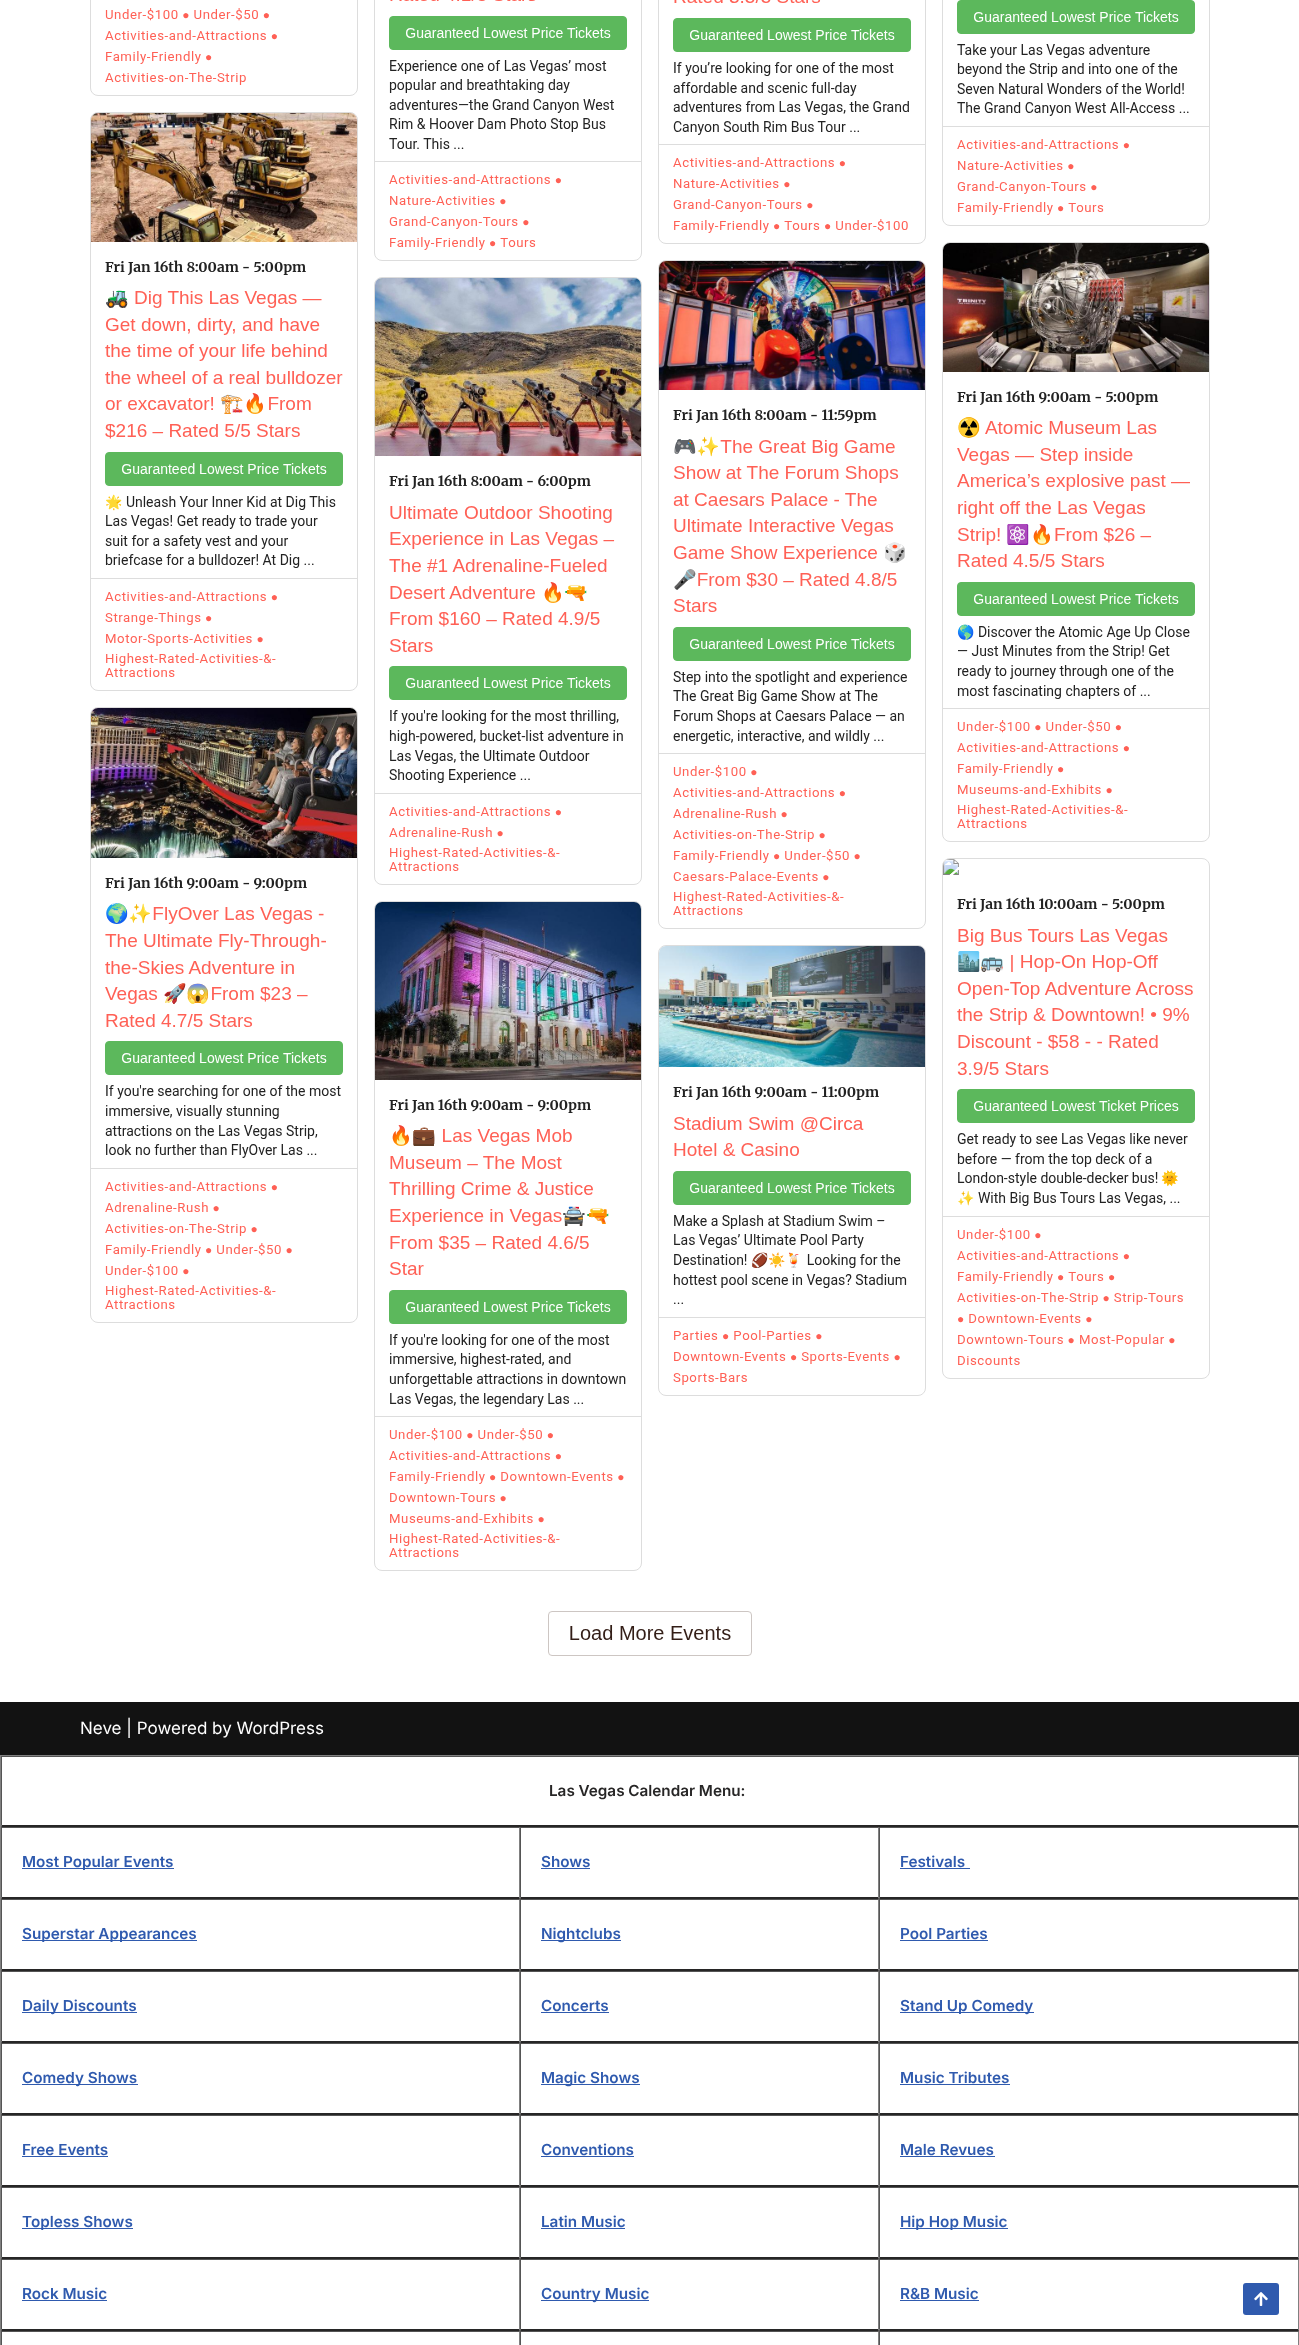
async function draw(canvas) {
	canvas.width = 1299;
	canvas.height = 2345;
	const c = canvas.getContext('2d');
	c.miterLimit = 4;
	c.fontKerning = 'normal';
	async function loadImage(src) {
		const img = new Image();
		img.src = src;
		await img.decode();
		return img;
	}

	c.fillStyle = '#fff';
	c.fillRect(0, 0, 1299, 2345);
	c.drawImage(await loadImage('img1.png'), 90, 0, 1120, 1656);
	c.fillStyle = '#121212';
	c.fillRect(0, 1702, 1299, 53);
	c.font = '17px Inter';
	c.fillStyle = '#fff';
	c.fillText('Neve | Powered by WordPress', 80, 1734);
	c.fillStyle = '#2f5aae';
	c.beginPath();
	c.roundRect(1243, 2283, 36, 32, 3);
	c.fill();
	c.drawImage(await loadImage('img2.png'), 1254, 2292, 14, 14);
	for (const [x, y, w, h, color] of [
		[0, 1755, 1299, 1, '#808080'],
		[0, 1755, 1, 590, '#808080'],
		[1, 1756, 1298, 1, '#555'],
	]) {
		c.fillStyle = color;
		c.fillRect(x, y, w, h);
	}
	c.fillStyle = '#808080';
	c.beginPath();
	c.moveTo(1299, 1756);
	c.lineTo(1299, 1827);
	c.lineTo(1298, 1825);
	c.lineTo(1298, 1757);
	c.closePath();
	c.fill();
	c.fillStyle = '#272626';
	c.beginPath();
	c.moveTo(1299, 1827);
	c.lineTo(1, 1827);
	c.lineTo(2, 1825);
	c.lineTo(1298, 1825);
	c.closePath();
	c.fill();
	c.fillStyle = '#555';
	c.beginPath();
	c.moveTo(1, 1827);
	c.lineTo(1, 1756);
	c.lineTo(2, 1757);
	c.lineTo(2, 1825);
	c.closePath();
	c.fill();
	c.font = '600 15.25px Inter';
	c.fillStyle = '#272626';
	c.fillText('Las Vegas Calendar Menu:', 549, 1796);
	c.fillStyle = '#555';
	c.fillRect(1, 1827, 1298, 1);
	c.fillStyle = '#808080';
	c.beginPath();
	c.moveTo(520, 1827);
	c.lineTo(520, 1899);
	c.lineTo(519, 1897);
	c.lineTo(519, 1828);
	c.closePath();
	c.fill();
	c.fillStyle = '#272626';
	c.beginPath();
	c.moveTo(520, 1899);
	c.lineTo(1, 1899);
	c.lineTo(2, 1897);
	c.lineTo(519, 1897);
	c.closePath();
	c.fill();
	c.fillStyle = '#555';
	c.beginPath();
	c.moveTo(1, 1899);
	c.lineTo(1, 1827);
	c.lineTo(2, 1828);
	c.lineTo(2, 1897);
	c.closePath();
	c.fill();
	c.fillStyle = '#2f5aae';
	c.fillRect(22, 1868, 152, 1);
	c.fillText('Most Popular Events', 22, 1867);
	c.fillStyle = '#808080';
	c.beginPath();
	c.moveTo(879, 1827);
	c.lineTo(879, 1899);
	c.lineTo(878, 1897);
	c.lineTo(878, 1828);
	c.closePath();
	c.fill();
	c.fillStyle = '#272626';
	c.beginPath();
	c.moveTo(879, 1899);
	c.lineTo(520, 1899);
	c.lineTo(521, 1897);
	c.lineTo(878, 1897);
	c.closePath();
	c.fill();
	c.fillStyle = '#555';
	c.beginPath();
	c.moveTo(520, 1899);
	c.lineTo(520, 1827);
	c.lineTo(521, 1828);
	c.lineTo(521, 1897);
	c.closePath();
	c.fill();
	c.fillStyle = '#2f5aae';
	c.fillText('Shows', 541, 1867);
	c.fillRect(541, 1868, 49, 1);
	c.fillStyle = '#808080';
	c.beginPath();
	c.moveTo(1299, 1827);
	c.lineTo(1299, 1899);
	c.lineTo(1298, 1897);
	c.lineTo(1298, 1828);
	c.closePath();
	c.fill();
	c.fillStyle = '#272626';
	c.beginPath();
	c.moveTo(1299, 1899);
	c.lineTo(879, 1899);
	c.lineTo(880, 1897);
	c.lineTo(1298, 1897);
	c.closePath();
	c.fill();
	c.fillStyle = '#555';
	c.beginPath();
	c.moveTo(879, 1899);
	c.lineTo(879, 1827);
	c.lineTo(880, 1828);
	c.lineTo(880, 1897);
	c.closePath();
	c.fill();
	c.fillStyle = '#2f5aae';
	c.fillText('Festivals', 900, 1867);
	c.fillRect(900, 1868, 70, 1);
	c.fillStyle = '#555';
	c.fillRect(1, 1899, 1298, 1);
	c.fillStyle = '#808080';
	c.beginPath();
	c.moveTo(520, 1899);
	c.lineTo(520, 1971);
	c.lineTo(519, 1969);
	c.lineTo(519, 1900);
	c.closePath();
	c.fill();
	c.fillStyle = '#272626';
	c.beginPath();
	c.moveTo(520, 1971);
	c.lineTo(1, 1971);
	c.lineTo(2, 1969);
	c.lineTo(519, 1969);
	c.closePath();
	c.fill();
	c.fillStyle = '#555';
	c.beginPath();
	c.moveTo(1, 1971);
	c.lineTo(1, 1899);
	c.lineTo(2, 1900);
	c.lineTo(2, 1969);
	c.closePath();
	c.fill();
	c.fillStyle = '#2f5aae';
	c.fillRect(22, 1940, 175, 1);
	c.fillText('Superstar Appearances', 22, 1939);
	c.fillStyle = '#808080';
	c.beginPath();
	c.moveTo(879, 1899);
	c.lineTo(879, 1971);
	c.lineTo(878, 1969);
	c.lineTo(878, 1900);
	c.closePath();
	c.fill();
	c.fillStyle = '#272626';
	c.beginPath();
	c.moveTo(879, 1971);
	c.lineTo(520, 1971);
	c.lineTo(521, 1969);
	c.lineTo(878, 1969);
	c.closePath();
	c.fill();
	c.fillStyle = '#555';
	c.beginPath();
	c.moveTo(520, 1971);
	c.lineTo(520, 1899);
	c.lineTo(521, 1900);
	c.lineTo(521, 1969);
	c.closePath();
	c.fill();
	c.fillStyle = '#2f5aae';
	c.fillRect(541, 1940, 80, 1);
	c.fillText('Nightclubs', 541, 1939);
	c.fillStyle = '#808080';
	c.beginPath();
	c.moveTo(1299, 1899);
	c.lineTo(1299, 1971);
	c.lineTo(1298, 1969);
	c.lineTo(1298, 1900);
	c.closePath();
	c.fill();
	c.fillStyle = '#272626';
	c.beginPath();
	c.moveTo(1299, 1971);
	c.lineTo(879, 1971);
	c.lineTo(880, 1969);
	c.lineTo(1298, 1969);
	c.closePath();
	c.fill();
	c.fillStyle = '#555';
	c.beginPath();
	c.moveTo(879, 1971);
	c.lineTo(879, 1899);
	c.lineTo(880, 1900);
	c.lineTo(880, 1969);
	c.closePath();
	c.fill();
	c.fillStyle = '#2f5aae';
	c.fillText('Pool Parties', 900, 1939);
	c.fillRect(900, 1940, 88, 1);
	c.fillStyle = '#555';
	c.fillRect(1, 1971, 1298, 1);
	c.fillStyle = '#808080';
	c.beginPath();
	c.moveTo(520, 1971);
	c.lineTo(520, 2043);
	c.lineTo(519, 2041);
	c.lineTo(519, 1972);
	c.closePath();
	c.fill();
	c.fillStyle = '#272626';
	c.beginPath();
	c.moveTo(520, 2043);
	c.lineTo(1, 2043);
	c.lineTo(2, 2041);
	c.lineTo(519, 2041);
	c.closePath();
	c.fill();
	c.fillStyle = '#555';
	c.beginPath();
	c.moveTo(1, 2043);
	c.lineTo(1, 1971);
	c.lineTo(2, 1972);
	c.lineTo(2, 2041);
	c.closePath();
	c.fill();
	c.fillStyle = '#2f5aae';
	c.fillRect(22, 2012, 115, 1);
	c.fillText('Daily Discounts', 22, 2011);
	c.fillStyle = '#808080';
	c.beginPath();
	c.moveTo(879, 1971);
	c.lineTo(879, 2043);
	c.lineTo(878, 2041);
	c.lineTo(878, 1972);
	c.closePath();
	c.fill();
	c.fillStyle = '#272626';
	c.beginPath();
	c.moveTo(879, 2043);
	c.lineTo(520, 2043);
	c.lineTo(521, 2041);
	c.lineTo(878, 2041);
	c.closePath();
	c.fill();
	c.fillStyle = '#555';
	c.beginPath();
	c.moveTo(520, 2043);
	c.lineTo(520, 1971);
	c.lineTo(521, 1972);
	c.lineTo(521, 2041);
	c.closePath();
	c.fill();
	c.fillStyle = '#2f5aae';
	c.fillText('Concerts', 541, 2011);
	c.fillRect(541, 2012, 68, 1);
	c.fillStyle = '#808080';
	c.beginPath();
	c.moveTo(1299, 1971);
	c.lineTo(1299, 2043);
	c.lineTo(1298, 2041);
	c.lineTo(1298, 1972);
	c.closePath();
	c.fill();
	c.fillStyle = '#272626';
	c.beginPath();
	c.moveTo(1299, 2043);
	c.lineTo(879, 2043);
	c.lineTo(880, 2041);
	c.lineTo(1298, 2041);
	c.closePath();
	c.fill();
	c.fillStyle = '#555';
	c.beginPath();
	c.moveTo(879, 2043);
	c.lineTo(879, 1971);
	c.lineTo(880, 1972);
	c.lineTo(880, 2041);
	c.closePath();
	c.fill();
	c.fillStyle = '#2f5aae';
	c.fillRect(900, 2012, 134, 1);
	c.fillText('Stand Up Comedy', 900, 2011);
	c.fillStyle = '#555';
	c.fillRect(1, 2043, 1298, 1);
	c.fillStyle = '#808080';
	c.beginPath();
	c.moveTo(520, 2043);
	c.lineTo(520, 2115);
	c.lineTo(519, 2113);
	c.lineTo(519, 2044);
	c.closePath();
	c.fill();
	c.fillStyle = '#272626';
	c.beginPath();
	c.moveTo(520, 2115);
	c.lineTo(1, 2115);
	c.lineTo(2, 2113);
	c.lineTo(519, 2113);
	c.closePath();
	c.fill();
	c.fillStyle = '#555';
	c.beginPath();
	c.moveTo(1, 2115);
	c.lineTo(1, 2043);
	c.lineTo(2, 2044);
	c.lineTo(2, 2113);
	c.closePath();
	c.fill();
	c.fillStyle = '#2f5aae';
	c.fillRect(22, 2084, 116, 1);
	c.fillText('Comedy Shows', 22, 2083);
	c.fillStyle = '#808080';
	c.beginPath();
	c.moveTo(879, 2043);
	c.lineTo(879, 2115);
	c.lineTo(878, 2113);
	c.lineTo(878, 2044);
	c.closePath();
	c.fill();
	c.fillStyle = '#272626';
	c.beginPath();
	c.moveTo(879, 2115);
	c.lineTo(520, 2115);
	c.lineTo(521, 2113);
	c.lineTo(878, 2113);
	c.closePath();
	c.fill();
	c.fillStyle = '#555';
	c.beginPath();
	c.moveTo(520, 2115);
	c.lineTo(520, 2043);
	c.lineTo(521, 2044);
	c.lineTo(521, 2113);
	c.closePath();
	c.fill();
	c.fillStyle = '#2f5aae';
	c.fillRect(541, 2084, 99, 1);
	c.fillText('Magic Shows', 541, 2083);
	c.fillStyle = '#808080';
	c.beginPath();
	c.moveTo(1299, 2043);
	c.lineTo(1299, 2115);
	c.lineTo(1298, 2113);
	c.lineTo(1298, 2044);
	c.closePath();
	c.fill();
	c.fillStyle = '#272626';
	c.beginPath();
	c.moveTo(1299, 2115);
	c.lineTo(879, 2115);
	c.lineTo(880, 2113);
	c.lineTo(1298, 2113);
	c.closePath();
	c.fill();
	c.fillStyle = '#555';
	c.beginPath();
	c.moveTo(879, 2115);
	c.lineTo(879, 2043);
	c.lineTo(880, 2044);
	c.lineTo(880, 2113);
	c.closePath();
	c.fill();
	c.fillStyle = '#2f5aae';
	c.fillText('Music Tributes', 900, 2083);
	c.fillRect(900, 2084, 110, 1);
	c.fillStyle = '#555';
	c.fillRect(1, 2115, 1298, 1);
	c.fillStyle = '#808080';
	c.beginPath();
	c.moveTo(520, 2115);
	c.lineTo(520, 2187);
	c.lineTo(519, 2185);
	c.lineTo(519, 2116);
	c.closePath();
	c.fill();
	c.fillStyle = '#272626';
	c.beginPath();
	c.moveTo(520, 2187);
	c.lineTo(1, 2187);
	c.lineTo(2, 2185);
	c.lineTo(519, 2185);
	c.closePath();
	c.fill();
	c.fillStyle = '#555';
	c.beginPath();
	c.moveTo(1, 2187);
	c.lineTo(1, 2115);
	c.lineTo(2, 2116);
	c.lineTo(2, 2185);
	c.closePath();
	c.fill();
	c.fillStyle = '#2f5aae';
	c.fillText('Free Events', 22, 2155);
	c.fillRect(22, 2156, 86, 1);
	c.fillStyle = '#808080';
	c.beginPath();
	c.moveTo(879, 2115);
	c.lineTo(879, 2187);
	c.lineTo(878, 2185);
	c.lineTo(878, 2116);
	c.closePath();
	c.fill();
	c.fillStyle = '#272626';
	c.beginPath();
	c.moveTo(879, 2187);
	c.lineTo(520, 2187);
	c.lineTo(521, 2185);
	c.lineTo(878, 2185);
	c.closePath();
	c.fill();
	c.fillStyle = '#555';
	c.beginPath();
	c.moveTo(520, 2187);
	c.lineTo(520, 2115);
	c.lineTo(521, 2116);
	c.lineTo(521, 2185);
	c.closePath();
	c.fill();
	c.fillStyle = '#2f5aae';
	c.fillText('Conventions', 541, 2155);
	c.fillRect(541, 2156, 93, 1);
	c.fillStyle = '#808080';
	c.beginPath();
	c.moveTo(1299, 2115);
	c.lineTo(1299, 2187);
	c.lineTo(1298, 2185);
	c.lineTo(1298, 2116);
	c.closePath();
	c.fill();
	c.fillStyle = '#272626';
	c.beginPath();
	c.moveTo(1299, 2187);
	c.lineTo(879, 2187);
	c.lineTo(880, 2185);
	c.lineTo(1298, 2185);
	c.closePath();
	c.fill();
	c.fillStyle = '#555';
	c.beginPath();
	c.moveTo(879, 2187);
	c.lineTo(879, 2115);
	c.lineTo(880, 2116);
	c.lineTo(880, 2185);
	c.closePath();
	c.fill();
	c.fillStyle = '#2f5aae';
	c.fillText('Male Revues', 900, 2155);
	c.fillRect(900, 2156, 95, 1);
	c.fillStyle = '#555';
	c.fillRect(1, 2187, 1298, 1);
	c.fillStyle = '#808080';
	c.beginPath();
	c.moveTo(520, 2187);
	c.lineTo(520, 2259);
	c.lineTo(519, 2257);
	c.lineTo(519, 2188);
	c.closePath();
	c.fill();
	c.fillStyle = '#272626';
	c.beginPath();
	c.moveTo(520, 2259);
	c.lineTo(1, 2259);
	c.lineTo(2, 2257);
	c.lineTo(519, 2257);
	c.closePath();
	c.fill();
	c.fillStyle = '#555';
	c.beginPath();
	c.moveTo(1, 2259);
	c.lineTo(1, 2187);
	c.lineTo(2, 2188);
	c.lineTo(2, 2257);
	c.closePath();
	c.fill();
	c.fillStyle = '#2f5aae';
	c.fillRect(22, 2228, 111, 1);
	c.fillText('Topless Shows', 22, 2227);
	c.fillStyle = '#808080';
	c.beginPath();
	c.moveTo(879, 2187);
	c.lineTo(879, 2259);
	c.lineTo(878, 2257);
	c.lineTo(878, 2188);
	c.closePath();
	c.fill();
	c.fillStyle = '#272626';
	c.beginPath();
	c.moveTo(879, 2259);
	c.lineTo(520, 2259);
	c.lineTo(521, 2257);
	c.lineTo(878, 2257);
	c.closePath();
	c.fill();
	c.fillStyle = '#555';
	c.beginPath();
	c.moveTo(520, 2259);
	c.lineTo(520, 2187);
	c.lineTo(521, 2188);
	c.lineTo(521, 2257);
	c.closePath();
	c.fill();
	c.fillStyle = '#2f5aae';
	c.fillText('Latin Music', 541, 2227);
	c.fillRect(541, 2228, 84, 1);
	c.fillStyle = '#808080';
	c.beginPath();
	c.moveTo(1299, 2187);
	c.lineTo(1299, 2259);
	c.lineTo(1298, 2257);
	c.lineTo(1298, 2188);
	c.closePath();
	c.fill();
	c.fillStyle = '#272626';
	c.beginPath();
	c.moveTo(1299, 2259);
	c.lineTo(879, 2259);
	c.lineTo(880, 2257);
	c.lineTo(1298, 2257);
	c.closePath();
	c.fill();
	c.fillStyle = '#555';
	c.beginPath();
	c.moveTo(879, 2259);
	c.lineTo(879, 2187);
	c.lineTo(880, 2188);
	c.lineTo(880, 2257);
	c.closePath();
	c.fill();
	c.fillStyle = '#2f5aae';
	c.fillRect(900, 2228, 108, 1);
	c.fillText('Hip Hop Music', 900, 2227);
	c.fillStyle = '#555';
	c.fillRect(1, 2259, 1298, 1);
	c.fillStyle = '#808080';
	c.beginPath();
	c.moveTo(520, 2259);
	c.lineTo(520, 2331);
	c.lineTo(519, 2329);
	c.lineTo(519, 2260);
	c.closePath();
	c.fill();
	c.fillStyle = '#272626';
	c.beginPath();
	c.moveTo(520, 2331);
	c.lineTo(1, 2331);
	c.lineTo(2, 2329);
	c.lineTo(519, 2329);
	c.closePath();
	c.fill();
	c.fillStyle = '#555';
	c.beginPath();
	c.moveTo(1, 2331);
	c.lineTo(1, 2259);
	c.lineTo(2, 2260);
	c.lineTo(2, 2329);
	c.closePath();
	c.fill();
	c.fillStyle = '#2f5aae';
	c.fillText('Rock Music', 22, 2299);
	c.fillRect(22, 2300, 85, 1);
	c.fillStyle = '#808080';
	c.beginPath();
	c.moveTo(879, 2259);
	c.lineTo(879, 2331);
	c.lineTo(878, 2329);
	c.lineTo(878, 2260);
	c.closePath();
	c.fill();
	c.fillStyle = '#272626';
	c.beginPath();
	c.moveTo(879, 2331);
	c.lineTo(520, 2331);
	c.lineTo(521, 2329);
	c.lineTo(878, 2329);
	c.closePath();
	c.fill();
	c.fillStyle = '#555';
	c.beginPath();
	c.moveTo(520, 2331);
	c.lineTo(520, 2259);
	c.lineTo(521, 2260);
	c.lineTo(521, 2329);
	c.closePath();
	c.fill();
	c.fillStyle = '#2f5aae';
	c.fillRect(541, 2300, 108, 1);
	c.fillText('Country Music', 541, 2299);
	c.fillStyle = '#808080';
	c.beginPath();
	c.moveTo(1299, 2259);
	c.lineTo(1299, 2331);
	c.lineTo(1298, 2329);
	c.lineTo(1298, 2260);
	c.closePath();
	c.fill();
	c.fillStyle = '#272626';
	c.beginPath();
	c.moveTo(1299, 2331);
	c.lineTo(879, 2331);
	c.lineTo(880, 2329);
	c.lineTo(1298, 2329);
	c.closePath();
	c.fill();
	c.fillStyle = '#555';
	c.beginPath();
	c.moveTo(879, 2331);
	c.lineTo(879, 2259);
	c.lineTo(880, 2260);
	c.lineTo(880, 2329);
	c.closePath();
	c.fill();
	c.fillStyle = '#2f5aae';
	c.fillText('R&B Music', 900, 2299);
	c.fillRect(900, 2300, 79, 1);
	c.fillStyle = '#555';
	c.fillRect(1, 2331, 1298, 1);
	c.fillStyle = '#808080';
	c.beginPath();
	c.moveTo(520, 2331);
	c.lineTo(520, 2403);
	c.lineTo(519, 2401);
	c.lineTo(519, 2332);
	c.closePath();
	c.fill();
	c.fillStyle = '#555';
	c.beginPath();
	c.moveTo(1, 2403);
	c.lineTo(1, 2331);
	c.lineTo(2, 2332);
	c.lineTo(2, 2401);
	c.closePath();
	c.fill();
	c.fillStyle = '#808080';
	c.beginPath();
	c.moveTo(879, 2331);
	c.lineTo(879, 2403);
	c.lineTo(878, 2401);
	c.lineTo(878, 2332);
	c.closePath();
	c.fill();
	c.fillStyle = '#555';
	c.beginPath();
	c.moveTo(520, 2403);
	c.lineTo(520, 2331);
	c.lineTo(521, 2332);
	c.lineTo(521, 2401);
	c.closePath();
	c.fill();
	c.fillStyle = '#808080';
	c.beginPath();
	c.moveTo(1299, 2331);
	c.lineTo(1299, 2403);
	c.lineTo(1298, 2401);
	c.lineTo(1298, 2332);
	c.closePath();
	c.fill();
	c.fillStyle = '#555';
	c.beginPath();
	c.moveTo(879, 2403);
	c.lineTo(879, 2331);
	c.lineTo(880, 2332);
	c.lineTo(880, 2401);
	c.closePath();
	c.fill();
}

draw(document.querySelector('canvas'));
